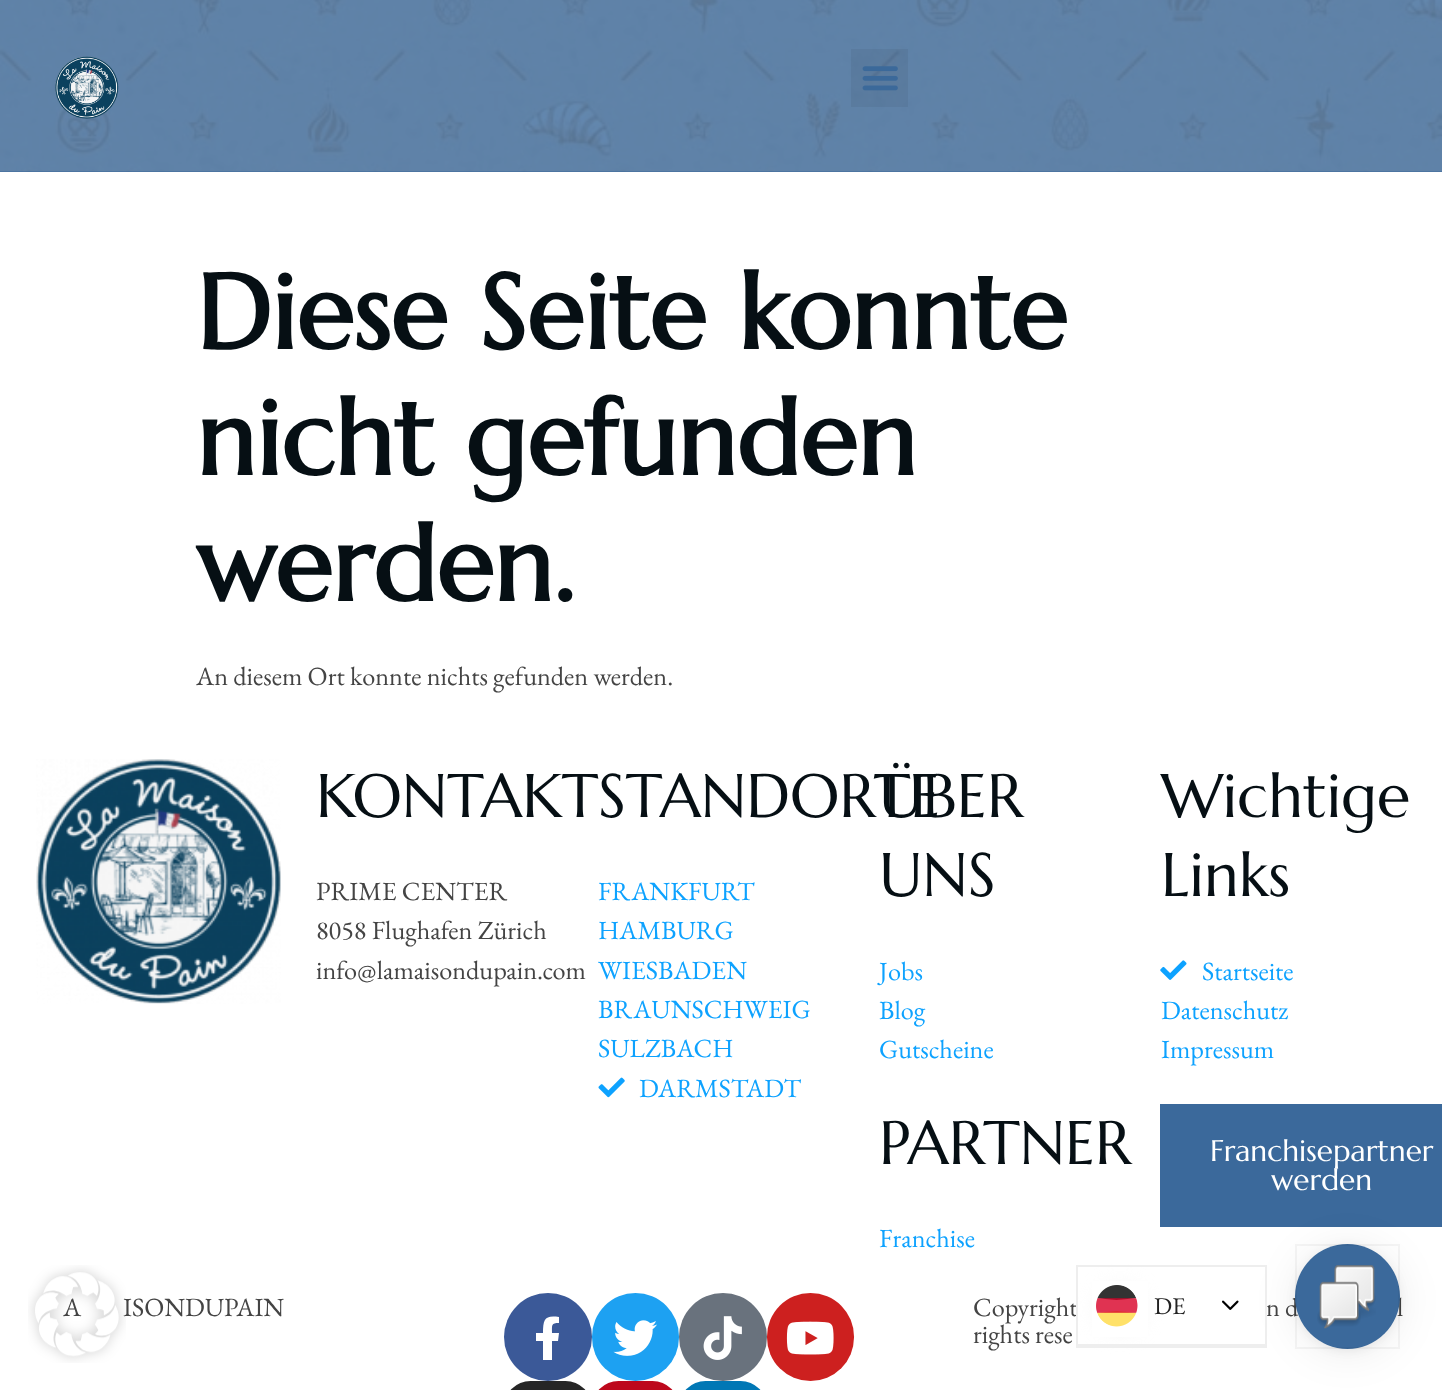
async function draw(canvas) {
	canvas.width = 1442;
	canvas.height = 1390;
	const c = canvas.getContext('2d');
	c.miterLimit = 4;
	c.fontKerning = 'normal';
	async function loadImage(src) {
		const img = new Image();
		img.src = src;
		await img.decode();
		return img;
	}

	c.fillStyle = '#fff';
	c.fillRect(0, 0, 1442, 1390);
	c.fillStyle = '#3b699b';
	c.fillRect(0, 171, 1442, 1);
	c.drawImage(await loadImage('img1.png'), 0, 0, 1442, 172);
	c.drawImage(await loadImage('img2.png'), 55, 56, 64, 63);
	c.fillStyle = '#0000000d';
	c.fillRect(851, 49, 57, 58);
	c.drawImage(await loadImage('img3.png'), 862, 66, 36, 25);
	c.font = 'bold 105px Marcellus';
	c.fillStyle = '#060f14';
	for (const [text, x, y] of [
		['Diese Seite konnte', 196, 349],
		['nicht gefunden', 196, 475],
		['werden.', 196, 601],
	]) {
		c.fillText(text, x, y);
	}
	c.font = '26.25px EB Garamond';
	c.fillStyle = '#444';
	c.fillText('An diesem Ort konnte nichts gefunden werden.', 196, 685);
	c.drawImage(await loadImage('img4.png'), 36, 759, 245, 245);
	c.font = '61.25px Marcellus';
	c.fillStyle = '#060f14';
	c.fillText('KONTAKT', 316, 817);
	c.font = '26.25px EB Garamond';
	c.fillStyle = '#444';
	for (const [text, x, y] of [
		['PRIME CENTER', 316, 900],
		['8058 Flughafen Zürich', 316, 939],
		['info@lamaisondupain.com', 316, 979],
	]) {
		c.fillText(text, x, y);
	}
	c.font = '61.25px Marcellus';
	c.fillStyle = '#060f14';
	c.fillText('STANDORTE', 598, 817);
	c.font = '26.25px EB Garamond';
	c.fillStyle = '#0da2ff';
	for (const [text, x, y] of [
		['FRANKFURT', 598, 900],
		['HAMBURG', 598, 939],
		['WIESBADEN', 598, 979],
		['BRAUNSCHWEIG', 598, 1018],
		['SULZBACH', 598, 1057],
	]) {
		c.fillText(text, x, y);
	}
	c.drawImage(await loadImage('img5.png'), 598, 1077, 27, 21);
	c.fillText('DARMSTADT', 639, 1097);
	c.font = '61.25px Marcellus';
	c.fillStyle = '#060f14';
	c.fillText('ÜBER', 879, 817);
	c.fillText('UNS', 879, 896);
	c.font = '26.25px EB Garamond';
	c.fillStyle = '#0da2ff';
	for (const [text, x, y] of [
		['Jobs', 879, 980],
		['Blog', 879, 1019],
		['Gutscheine', 879, 1058],
	]) {
		c.fillText(text, x, y);
	}
	c.font = '61.25px Marcellus';
	c.fillStyle = '#060f14';
	c.fillText('PARTNER', 879, 1164);
	c.font = '26.25px EB Garamond';
	c.fillStyle = '#0da2ff';
	c.fillText('Franchise', 879, 1247);
	c.font = '61.25px Marcellus';
	c.fillStyle = '#060f14';
	c.fillText('Wichtige', 1161, 817);
	c.fillText('Links', 1161, 896);
	c.drawImage(await loadImage('img6.png'), 1160, 960, 27, 20);
	c.font = '26.25px EB Garamond';
	c.fillStyle = '#0da2ff';
	for (const [text, x, y] of [
		['Startseite', 1202, 980],
		['Datenschutz', 1161, 1019],
		['Impressum', 1161, 1058],
	]) {
		c.fillText(text, x, y);
	}
	c.fillStyle = '#3b699b';
	c.fillRect(1160, 1104, 282, 123);
	c.font = '29.75px Marcellus';
	c.fillStyle = '#fff';
	c.fillText('Franchisepartner', 1210, 1161);
	c.fillText('werden', 1271, 1190);
	c.font = '26.25px EB Garamond';
	c.fillStyle = '#444';
	c.fillText('A', 63, 1316);
	c.fillText('ISONDUPAIN', 123, 1316);
	c.fillStyle = '#3b5998';
	c.beginPath();
	c.arc(548, 1337, 44, 0, 2 * Math.PI);
	c.fill();
	c.fillStyle = '#fff';
	c.beginPath();
	c.moveTo(558, 1341);
	c.lineTo(552, 1341);
	c.lineTo(552, 1360);
	c.lineTo(543, 1360);
	c.lineTo(543, 1341);
	c.lineTo(536, 1341);
	c.lineTo(536, 1333);
	c.lineTo(543, 1333);
	c.bezierCurveTo(543, 1319, 545, 1315, 559, 1317);
	c.lineTo(559, 1323);
	c.bezierCurveTo(551, 1323, 552, 1325, 552, 1333);
	c.lineTo(559, 1333);
	c.closePath();
	c.fill();
	c.fillStyle = '#1da1f2';
	c.beginPath();
	c.roundRect(592, 1293, 87, 88, 43.5);
	c.fill();
	c.drawImage(await loadImage('img7.png'), 613, 1320, 44, 36);
	c.fillStyle = '#69727d';
	c.beginPath();
	c.arc(723, 1337, 44, 0, 2 * Math.PI);
	c.fill();
	c.drawImage(await loadImage('img8.png'), 703, 1316, 39, 44);
	c.fillStyle = '#cd201f';
	c.beginPath();
	c.roundRect(767, 1293, 87, 88, 43.5);
	c.fill();
	c.drawImage(await loadImage('img9.png'), 786, 1321, 48, 34);
	c.fillStyle = '#262626';
	c.beginPath();
	c.roundRect(504, 1381, 88, 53, 43.5);
	c.fill();
	c.fillStyle = '#bd081c';
	c.beginPath();
	c.roundRect(592, 1381, 87, 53, 43.5);
	c.fill();
	c.fillStyle = '#0077b5';
	c.beginPath();
	c.roundRect(679, 1381, 88, 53, 43.5);
	c.fill();
	c.fillStyle = '#444';
	for (const [text, x, y] of [
		['Copyright', 973, 1316],
		['n d', 1266, 1316],
		['l', 1397, 1316],
		['rights rese', 973, 1343],
	]) {
		c.fillText(text, x, y);
	}
	c.drawImage(await loadImage('img10.png'), 28, 1265, 98, 98);
	c.fillStyle = '#eeeeeecc';
	c.filter = 'blur(10.5px)';
	c.beginPath();
	c.roundRect(1099, 1288, 42, 42, 21);
	c.fill();
	c.filter = 'none';
	c.fillStyle = '#00000014';
	c.filter = 'blur(21px)';
	c.beginPath();
	c.roundRect(1295, 1248, 105, 105, 52.5);
	c.fill();
	c.filter = 'none';
	c.fillStyle = '#0000000f';
	c.filter = 'blur(5px)';
	c.beginPath();
	c.roundRect(1295, 1246, 105, 105, 52.5);
	c.fill();
	c.filter = 'none';
	c.fillStyle = '#3b699b';
	c.beginPath();
	c.arc(1347.5, 1296.5, 52.5, 0, 2 * Math.PI);
	c.fill();
	c.strokeStyle = '#0000000a';
	c.lineWidth = 2;
	c.strokeRect(1296, 1245, 103, 103);
	c.drawImage(await loadImage('img11.png'), 1317, 1265, 59, 64);
	c.fillStyle = '#fff';
	c.fillRect(1092, 1281, 56, 56);
	c.fillStyle = '#eee';
	c.fillRect(1076, 1346, 191, 2);
	c.strokeStyle = '#eee';
	c.strokeRect(1077, 1266, 189, 79);
	c.drawImage(await loadImage('img12.png'), 1096, 1285, 42, 42);
	c.font = '24px EB Garamond';
	c.fillStyle = '#222';
	c.fillText('DE', 1154, 1314);
	c.drawImage(await loadImage('img13.png'), 1222, 1300, 17, 10);
}

draw(document.querySelector('canvas'));
